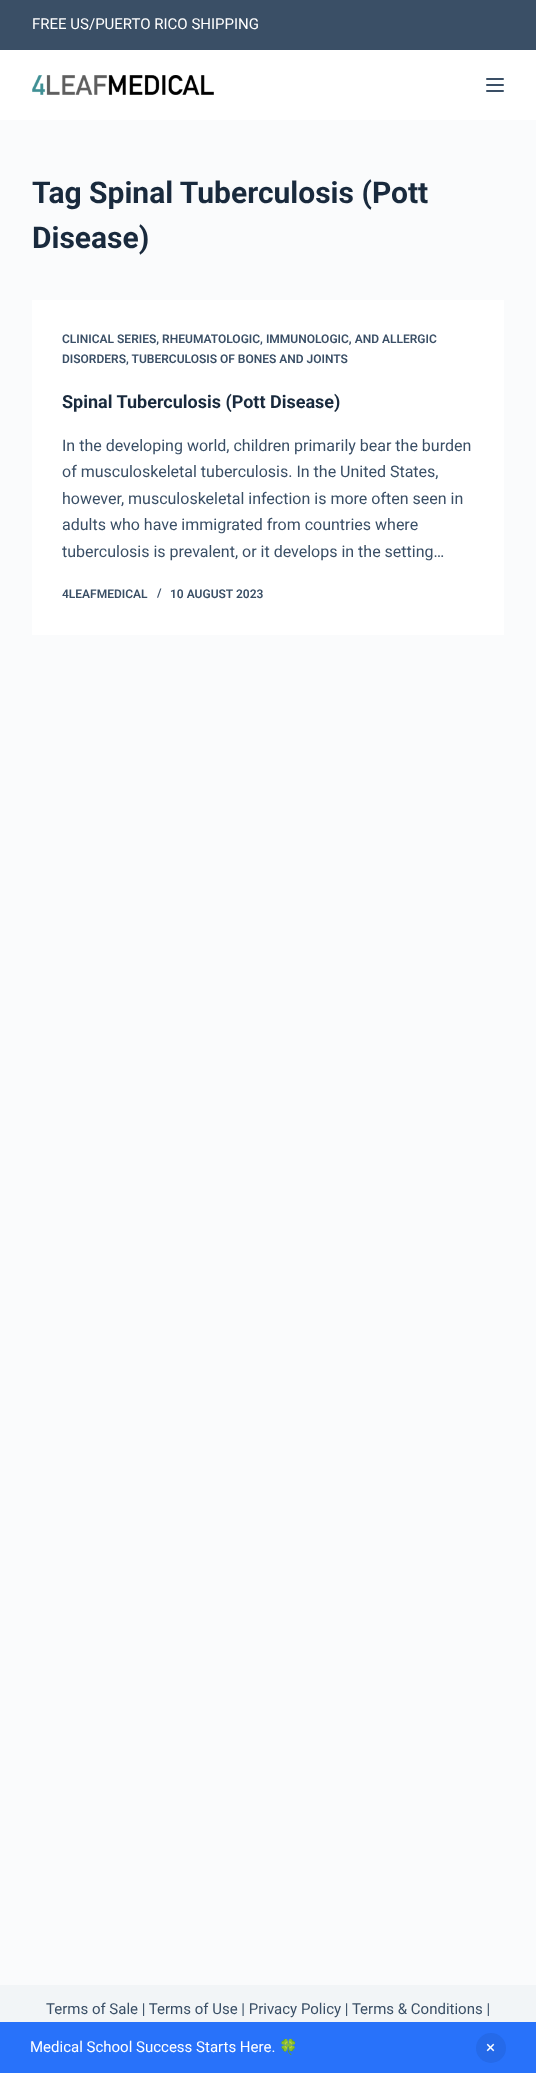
async function draw(canvas) {
	canvas.width = 536;
	canvas.height = 2073;
	const c = canvas.getContext('2d');
	c.miterLimit = 4;
	c.fontKerning = 'normal';
	async function loadImage(src) {
		const img = new Image();
		img.src = src;
		await img.decode();
		return img;
	}

	c.fillStyle = '#fafbfc';
	c.fillRect(0, 0, 536, 2073);
	c.fillStyle = '#3a4f66';
	c.fillRect(0, 0, 536, 50);
	c.font = '15px Roboto';
	c.fillStyle = '#fff';
	c.fillText('FREE US/PUERTO RICO SHIPPING', 32, 29);
	c.fillRect(0, 50, 536, 70);
	c.drawImage(await loadImage('img1.png'), 32, 75, 182, 20);
	c.fillStyle = '#3a4f66';
	c.beginPath();
	c.roundRect(486, 78, 18, 2, 1);
	c.fill();
	c.beginPath();
	c.roundRect(486, 84, 18, 2, 1);
	c.fill();
	c.beginPath();
	c.roundRect(486, 90, 18, 2, 1);
	c.fill();
	c.font = 'bold 30px Roboto';
	c.fillStyle = '#192a3d';
	c.fillText('Tag Spinal Tuberculosis (Pott', 32, 203);
	c.fillText('Disease)', 32, 248);
	c.fillStyle = '#fff';
	c.fillRect(32, 300, 472, 335);
	c.font = '600 12px Roboto';
	c.fillStyle = '#3a4f66';
	c.fillText('CLINICAL SERIES, RHEUMATOLOGIC, IMMUNOLOGIC, AND ALLERGIC', 62, 343);
	c.fillText('DISORDERS, TUBERCULOSIS OF BONES AND JOINTS', 62, 363);
	c.font = 'bold 18px Roboto';
	c.fillStyle = '#192a3d';
	c.fillText('Spinal Tuberculosis (Pott Disease)', 62, 408);
	c.font = '16px Roboto';
	c.fillStyle = '#3a4f66';
	for (const [text, x, y] of [
		['In the developing world, children primarily bear the burden', 62, 451],
		['of musculoskeletal tuberculosis. In the United States,', 62, 477],
		['however, musculoskeletal infection is more often seen in', 62, 504],
		['adults who have immigrated from countries where', 62, 530],
		['tuberculosis is prevalent, or it develops in the setting…', 62, 557],
	]) {
		c.fillText(text, x, y);
	}
	c.font = '600 12px Roboto';
	for (const [text, x, y] of [
		['4LEAFMEDICAL', 62, 598],
		['/', 157, 597],
		['10 AUGUST 2023', 170, 598],
	]) {
		c.fillText(text, x, y);
	}
	c.fillStyle = '#f2f5f7';
	c.fillRect(0, 1985, 536, 37);
	c.font = '15px Roboto';
	c.fillStyle = '#3a4f66';
	c.fillText('Terms of Sale | Terms of Use | Privacy Policy | Terms & Conditions |', 46, 2014);
	c.fillStyle = '#2872fa';
	c.fillRect(0, 2022, 536, 51);
	c.fillStyle = '#fff';
	c.fillText('Medical School Success Starts Here.', 30, 2052);
	c.font = '15px Noto Color Emoji';
	c.fillText('🍀', 279, 2052);
	c.fillStyle = '#256ae9';
	c.beginPath();
	c.arc(491, 2048, 15, 0, 2 * Math.PI);
	c.fill();
	c.font = '17px Roboto';
	c.fillStyle = '#fff';
	c.fillText('×', 486, 2053);
}

draw(document.querySelector('canvas'));
